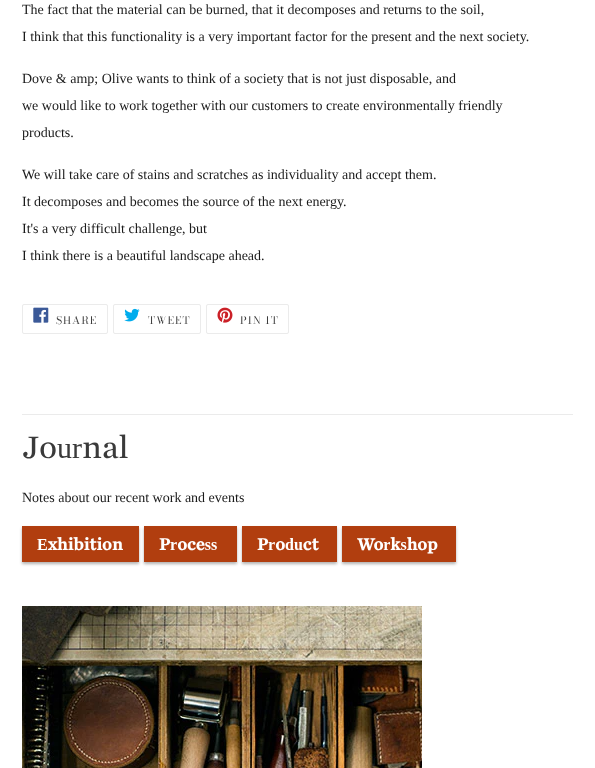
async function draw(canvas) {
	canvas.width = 595;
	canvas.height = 768;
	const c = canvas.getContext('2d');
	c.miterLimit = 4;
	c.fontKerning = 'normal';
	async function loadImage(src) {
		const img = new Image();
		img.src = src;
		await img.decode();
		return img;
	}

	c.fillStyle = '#fff';
	c.fillRect(0, 0, 595, 768);
	c.fillStyle = '#ebebeb';
	c.fillRect(22, 414, 551, 1);
	c.font = '14px Liberation Serif';
	c.fillStyle = '#1a1a1a';
	for (const [text, x, y] of [
		['The fact that the material can be burned, that it decomposes and returns to the soil,', 22, 14],
		['I think that this functionality is a very important factor for the present and the next society.', 22, 41],
		['Dove & amp; Olive wants to think of a society that is not just disposable, and', 22, 83],
		['we would like to work together with our customers to create environmentally friendly', 22, 110],
		['products.', 22, 137],
		['We will take care of stains and scratches as individuality and accept them.', 22, 179],
		['It decomposes and becomes the source of the next energy.', 22, 206],
		['It\'s a very difficult challenge, but', 22, 233],
		['I think there is a beautiful landscape ahead.', 22, 260],
	]) {
		c.fillText(text, x, y);
	}
	c.beginPath();
	c.roundRect(22.5, 304.5, 85, 29, 1.5);
	c.strokeStyle = '#ebebeb';
	c.stroke();
	c.drawImage(await loadImage('img1.png'), 33, 307, 16, 16);
	c.letterSpacing = '1px';
	c.font = '10.5px Bodoni Moda';
	c.fillStyle = '#3a3a3a';
	c.fillText('SHARE', 56, 324);
	c.beginPath();
	c.roundRect(113.5, 304.5, 87, 29, 1.5);
	c.stroke();
	c.drawImage(await loadImage('img2.png'), 124, 308, 16, 14);
	c.fillText('TWEET', 148, 324);
	c.beginPath();
	c.roundRect(206.5, 304.5, 82, 29, 1.5);
	c.stroke();
	c.drawImage(await loadImage('img3.png'), 217, 307, 16, 16);
	c.fillText('PIN IT', 240, 324);
	c.letterSpacing = '0px';
	c.font = '300 30px "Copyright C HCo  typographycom"';
	c.fillText('Journal', 22, 458);
	c.font = '14px Liberation Serif';
	c.fillStyle = '#1a1a1a';
	c.fillText('Notes about our recent work and events', 22, 502);
	c.fillStyle = '#0000004d';
	c.filter = 'blur(1.5px)';
	c.beginPath();
	c.rect(22, 528, 117, 36);
	c.fill();
	c.filter = 'none';
	c.fillStyle = '#b13e0f';
	c.fillRect(22, 526, 117, 36);
	c.font = 'bold 16px "Copyright C HCo  typographycom"';
	c.fillStyle = '#fff';
	c.fillText('Exhibition', 37, 550);
	c.fillStyle = '#0000004d';
	c.filter = 'blur(1.5px)';
	c.beginPath();
	c.rect(144, 528, 93, 36);
	c.fill();
	c.filter = 'none';
	c.fillStyle = '#b13e0f';
	c.fillRect(144, 526, 93, 36);
	c.fillStyle = '#fff';
	c.fillText('Process', 159, 550);
	c.fillStyle = '#0000004d';
	c.filter = 'blur(1.5px)';
	c.beginPath();
	c.rect(242, 528, 95, 36);
	c.fill();
	c.filter = 'none';
	c.fillStyle = '#b13e0f';
	c.fillRect(242, 526, 95, 36);
	c.fillStyle = '#fff';
	c.fillText('Product', 257, 550);
	c.fillStyle = '#0000004d';
	c.filter = 'blur(1.5px)';
	c.beginPath();
	c.rect(342, 528, 114, 36);
	c.fill();
	c.filter = 'none';
	c.fillStyle = '#b13e0f';
	c.fillRect(342, 526, 114, 36);
	c.fillStyle = '#fff';
	c.fillText('Workshop', 357, 550);
	c.drawImage(await loadImage('img4.png'), 22, 606, 400, 162);
}

draw(document.querySelector('canvas'));
